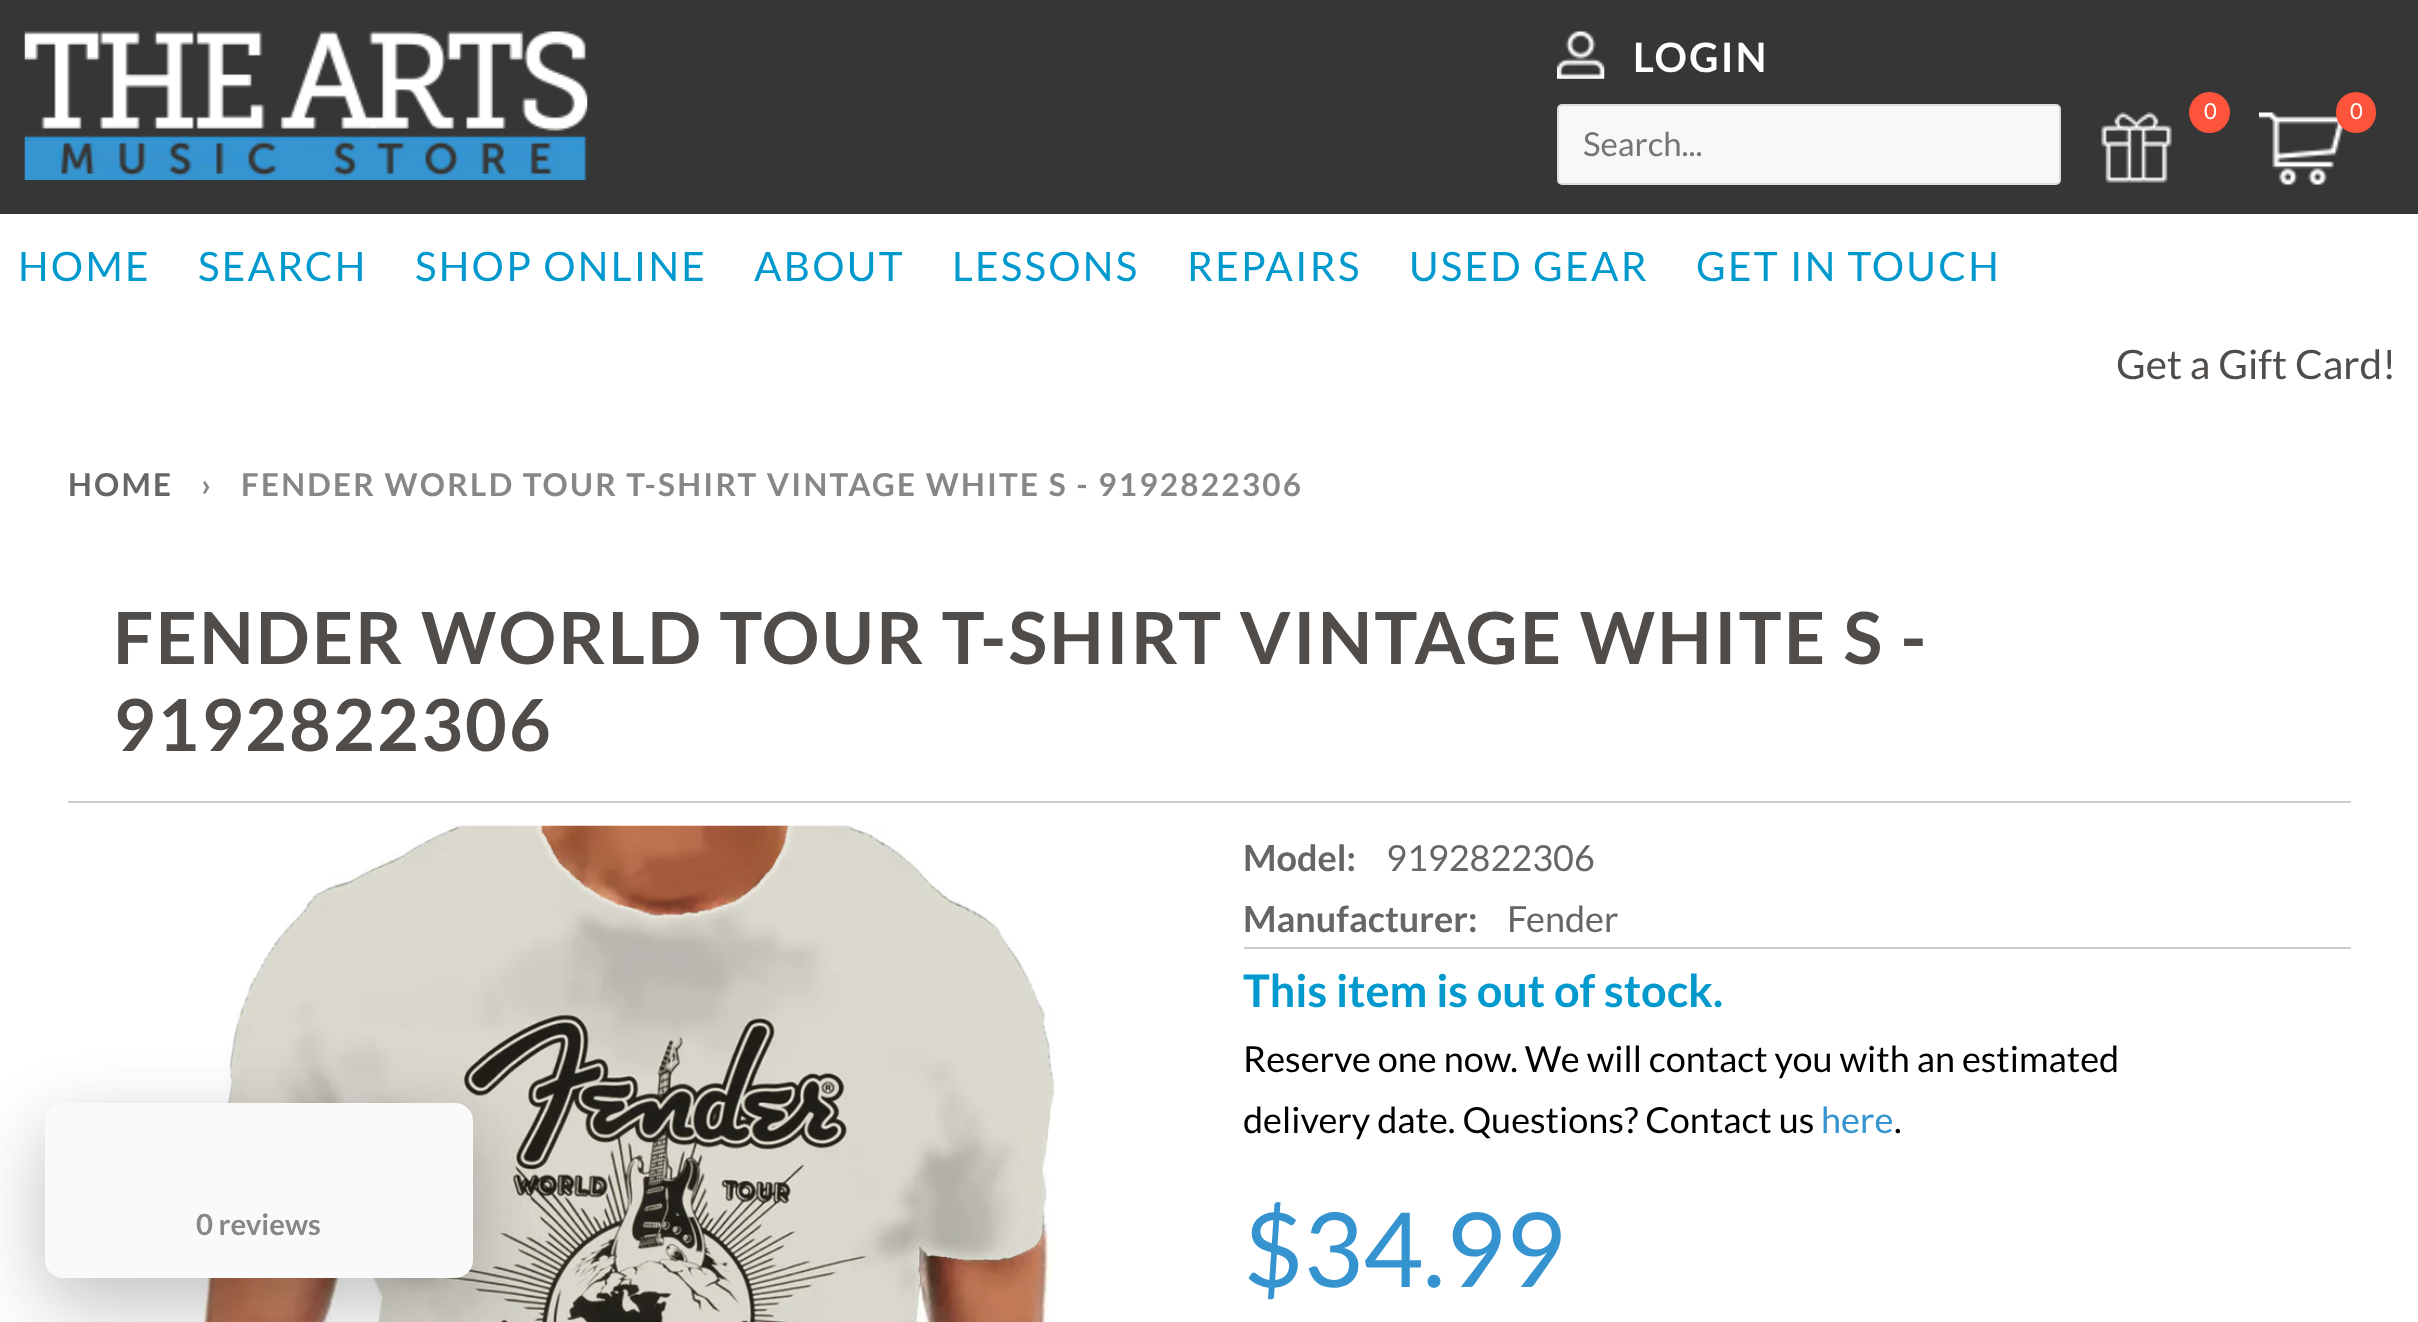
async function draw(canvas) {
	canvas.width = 2418;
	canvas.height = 1322;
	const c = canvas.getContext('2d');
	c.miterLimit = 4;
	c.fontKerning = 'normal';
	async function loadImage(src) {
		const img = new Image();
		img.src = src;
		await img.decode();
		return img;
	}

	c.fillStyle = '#fff';
	c.fillRect(0, 0, 2418, 1322);
	c.fillStyle = '#363636';
	c.fillRect(0, 0, 2418, 214);
	c.drawImage(await loadImage('img1.png'), 24, 31, 564, 149);
	c.drawImage(await loadImage('img2.png'), 1557, 31, 48, 48);
	c.letterSpacing = '2.25px';
	c.font = 'bold 40.5px Lato';
	c.fillStyle = '#fff';
	c.fillText('LOGIN', 1633, 72);
	c.drawImage(await loadImage('img3.png'), 2101, 112, 71, 71);
	c.fillStyle = '#fe543b';
	c.beginPath();
	c.arc(2209.5, 112.5, 20.5, 0, 2 * Math.PI);
	c.fill();
	c.letterSpacing = '0px';
	c.font = '22px Lato';
	c.fillStyle = '#fff';
	c.fillText('0', 2204, 119);
	c.drawImage(await loadImage('img4.png'), 2259, 112, 84, 73);
	c.fillStyle = '#fe543b';
	c.beginPath();
	c.roundRect(2336, 92, 40, 41, 20);
	c.fill();
	c.fillStyle = '#fff';
	c.fillText('0', 2350, 119);
	c.fillStyle = '#f8f8f8';
	c.beginPath();
	c.roundRect(1558, 105, 502, 79, 4);
	c.fill();
	c.strokeStyle = '#ddd';
	c.lineWidth = 2;
	c.stroke();
	c.font = '33px Lato';
	c.fillStyle = '#757575';
	c.fillText('Search...', 1583, 156);
	c.letterSpacing = '2.25px';
	c.font = '40.5px Lato';
	c.fillStyle = '#0099ce';
	for (const [text, x, y] of [
		['HOME', 18, 281],
		['SEARCH', 198, 281],
		['SHOP ONLINE', 415, 281],
		['ABOUT', 754, 281],
		['LESSONS', 952, 281],
		['REPAIRS', 1187, 281],
		['USED GEAR', 1409, 281],
		['GET IN TOUCH', 1696, 281],
	]) {
		c.fillText(text, x, y);
	}
	c.letterSpacing = '0px';
	c.fillStyle = '#504c49';
	c.fillText('Get a Gift Card!', 2116, 379);
	c.letterSpacing = '2.25px';
	c.font = 'bold 31.5px Lato';
	c.fillStyle = '#666';
	c.fillText('HOME', 68, 496);
	c.fillStyle = '#878787';
	c.fillText('›', 201, 496);
	c.fillText('FENDER WORLD TOUR T-SHIRT VINTAGE WHITE S - 9192822306', 241, 496);
	c.fillStyle = '#ccc';
	c.fillRect(68, 801, 2283, 2);
	c.font = 'bold 72px Lato';
	c.fillStyle = '#504c49';
	c.fillText('FENDER WORLD TOUR T-SHIRT VINTAGE WHITE S -', 113, 664);
	c.fillText('9192822306', 113, 751);
	c.drawImage(await loadImage('img5.png'), 202, 825, 853, 497);
	c.fillStyle = '#ccc';
	c.fillRect(1244, 947, 1107, 2);
	c.letterSpacing = '0px';
	c.font = 'bold 36px Lato';
	c.fillStyle = '#666';
	c.fillText('Model:', 1243, 871);
	c.font = '36px Lato';
	c.fillText('9192822306', 1386, 871);
	c.font = 'bold 36px Lato';
	c.fillText('Manufacturer:', 1243, 932);
	c.font = '36px Lato';
	c.fillText('Fender', 1507, 932);
	c.font = 'bold 45px Lato';
	c.fillStyle = '#0099ce';
	c.fillText('This item is out of stock.', 1243, 1007);
	c.font = '36px Lato';
	c.fillStyle = '#000';
	c.fillText('Reserve one now. We will contact you with an estimated', 1243, 1072);
	c.fillText('delivery date. Questions? Contact us', 1243, 1133);
	c.fillStyle = '#3594d0';
	c.fillText('here', 1821, 1133);
	c.fillStyle = '#000';
	c.fillText('.', 1894, 1133);
	c.font = '103.5px Lato';
	c.fillStyle = '#3594d0';
	c.fillText('$34.99', 1243, 1287);
	c.fillStyle = '#00000026';
	c.filter = 'blur(34px)';
	c.beginPath();
	c.roundRect(45, 1125, 428, 176, 18);
	c.fill();
	c.filter = 'none';
	c.fillStyle = '#0000001a';
	c.filter = 'blur(45px)';
	c.beginPath();
	c.roundRect(45, 1136, 428, 176, 18);
	c.fill();
	c.filter = 'none';
	c.fillStyle = '#fafafa';
	c.beginPath();
	c.roundRect(45, 1103, 428, 175, 18);
	c.fill();
	c.font = 'bold 29.25px Lato';
	c.fillStyle = '#878787';
	c.fillText('0 reviews', 196, 1235);
}

draw(document.querySelector('canvas'));
